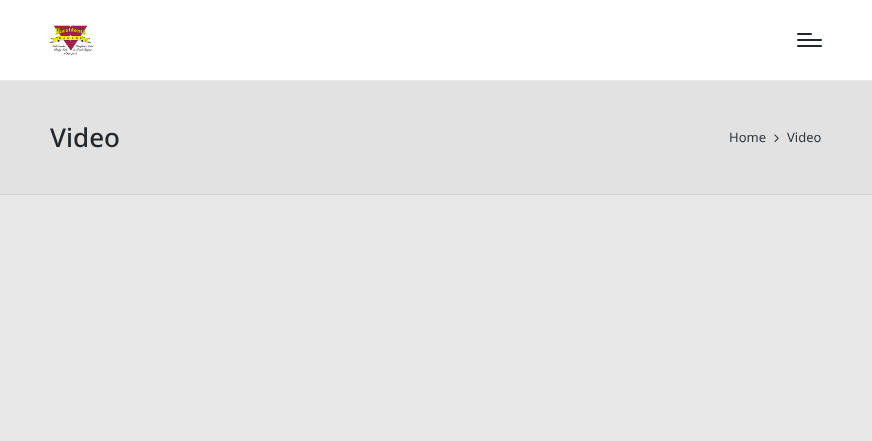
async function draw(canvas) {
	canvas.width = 872;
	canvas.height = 441;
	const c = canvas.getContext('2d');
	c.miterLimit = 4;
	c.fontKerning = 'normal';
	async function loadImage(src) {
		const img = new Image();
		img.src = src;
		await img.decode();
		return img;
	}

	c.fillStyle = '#e8e8e8';
	c.fillRect(0, 0, 872, 441);
	c.fillStyle = '#fff';
	c.fillRect(0, 0, 872, 80);
	c.drawImage(await loadImage('img1.png'), 50, 25, 43, 30);
	c.fillStyle = '#23282d';
	c.beginPath();
	c.roundRect(797, 39, 25, 2, 1);
	c.fill();
	c.beginPath();
	c.roundRect(797, 33, 15, 2, 1);
	c.fill();
	c.beginPath();
	c.roundRect(797, 45, 25, 2, 1);
	c.fill();
	c.fillStyle = '#e2e2e2';
	c.fillRect(0, 81, 872, 113);
	c.fillStyle = '#d4d4d4';
	c.fillRect(0, 194, 872, 1);
	c.font = '500 26px Noto Sans';
	c.fillStyle = '#23282d';
	c.fillText('Video', 50, 147);
	c.font = '13px Noto Sans';
	c.fillStyle = '#30373e';
	c.fillText('Home', 729, 142);
	c.drawImage(await loadImage('img2.png'), 774, 134, 5, 9);
	c.fillText('Video', 787, 142);
}

draw(document.querySelector('canvas'));
